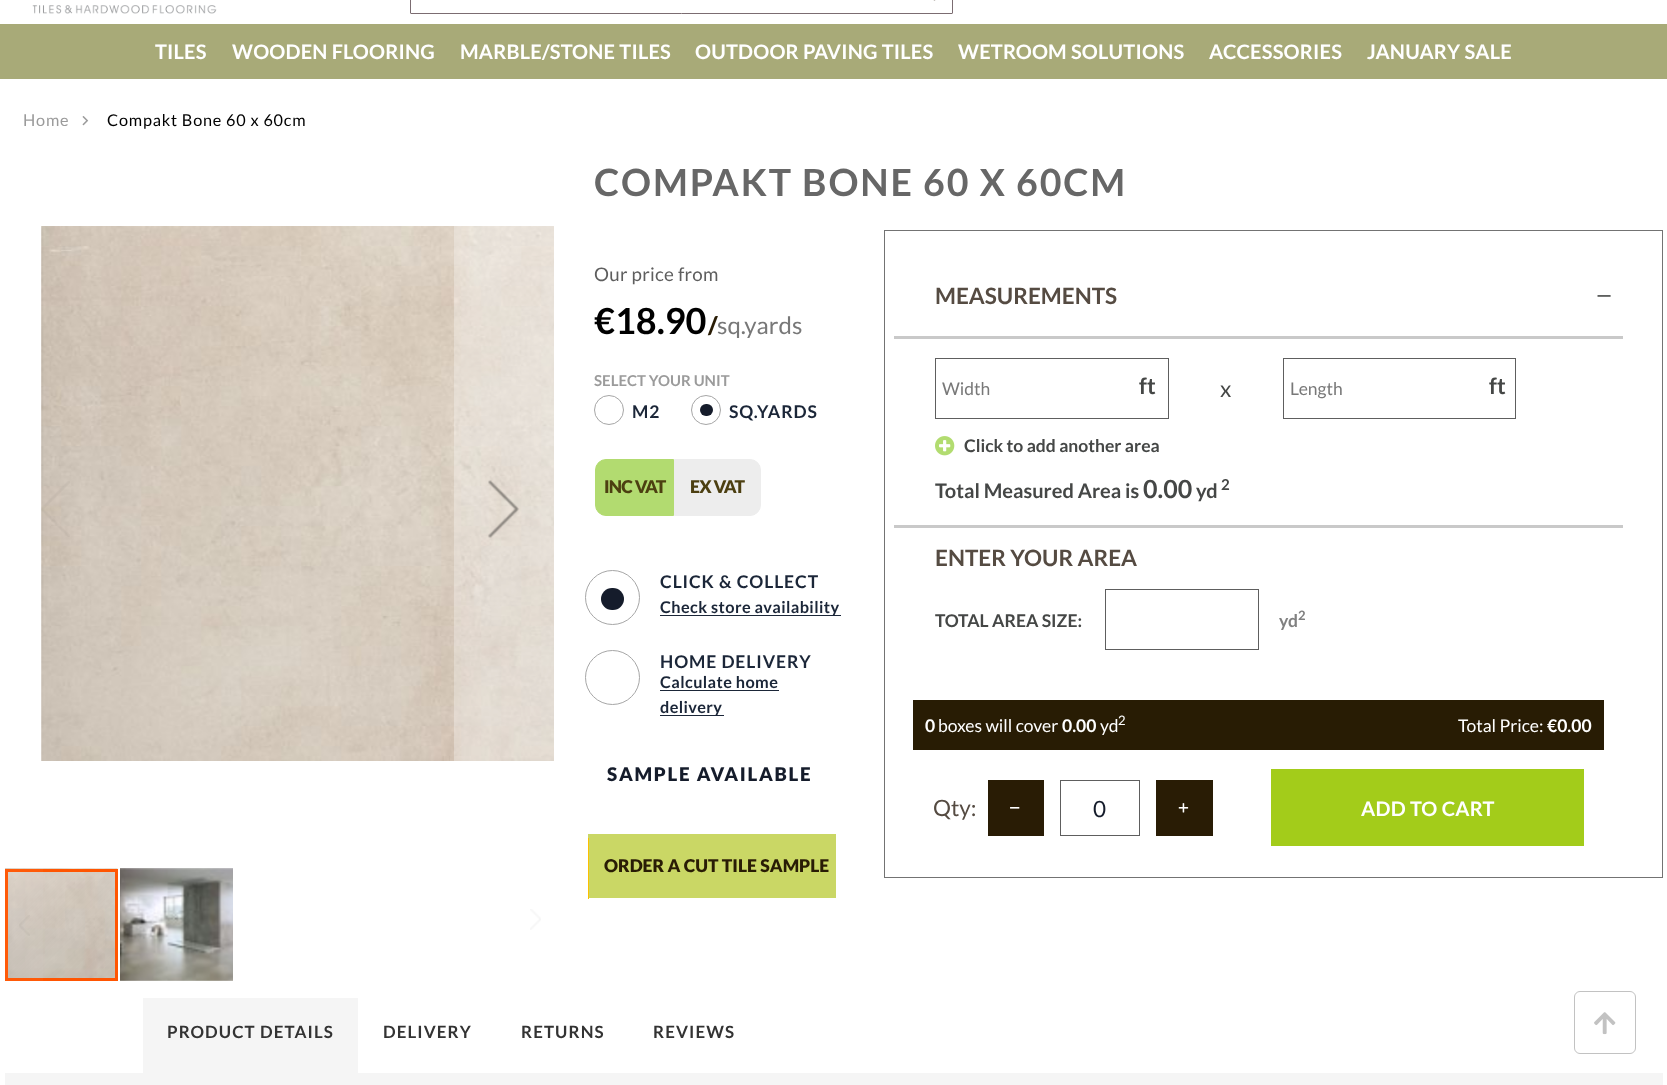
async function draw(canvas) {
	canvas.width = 1667;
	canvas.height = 1085;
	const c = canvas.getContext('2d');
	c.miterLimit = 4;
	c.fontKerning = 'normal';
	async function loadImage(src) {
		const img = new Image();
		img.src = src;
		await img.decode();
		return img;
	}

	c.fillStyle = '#fff';
	c.fillRect(0, 0, 1667, 1085);
	c.drawImage(await loadImage('img1.png'), 32, 5, 185, 9);
	c.beginPath();
	c.roundRect(410.5, -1.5, 542, 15, 0.5);
	c.strokeStyle = '#7b6c71';
	c.stroke();
	c.drawImage(await loadImage('img2.png'), 933, 0, 3, 1);
	c.fillStyle = '#a8aa78';
	c.fillRect(0, 24, 1667, 55);
	c.letterSpacing = '0.2px';
	c.font = 'bold 20px Lato';
	c.fillStyle = '#fff';
	for (const [text, x, y] of [
		['TILES', 155, 59],
		['WOODEN FLOORING', 232, 59],
		['MARBLE/STONE TILES', 460, 59],
		['OUTDOOR PAVING TILES', 695, 59],
		['WETROOM SOLUTIONS', 958, 59],
		['ACCESSORIES', 1209, 59],
		['JANUARY SALE', 1367, 59],
	]) {
		c.fillText(text, x, y);
	}
	c.letterSpacing = '0.8px';
	c.font = '16.25px Lato';
	c.fillStyle = '#9b9b9b';
	c.fillText('Home', 23, 126);
	c.drawImage(await loadImage('img3.png'), 82, 116, 7, 10);
	c.fillStyle = '#000';
	c.fillText('Compakt Bone 60 x 60cm', 107, 126);
	c.drawImage(await loadImage('img4.png'), 41, 226, 513, 535);
	c.fillStyle = '#ffffff08';
	c.fillRect(42, 251, 2, 292);
	c.drawImage(await loadImage('img5.png'), 41, 481, 29, 56);
	c.fillStyle = '#ffffff4d';
	c.fillRect(454, 226, 100, 535);
	c.drawImage(await loadImage('img6.png'), 488, 480, 32, 58);
	c.drawImage(await loadImage('img7.png'), 5, 868, 113, 110);
	c.drawImage(await loadImage('img8.png'), 120, 868, 113, 113);
	c.strokeStyle = '#ff5501';
	c.lineWidth = 3;
	c.strokeRect(6.5, 870.5, 110, 109);
	c.fillStyle = '#ffffff08';
	c.fillRect(5, 869, 38, 112);
	c.drawImage(await loadImage('img9.png'), 19, 915, 11, 21);
	c.drawImage(await loadImage('img10.png'), 530, 909, 11, 21);
	c.letterSpacing = '1.9px';
	c.font = 'bold 37.5px Lato';
	c.fillStyle = '#676767';
	c.fillText('COMPAKT BONE 60 X 60CM', 594, 196);
	c.letterSpacing = '0.25px';
	c.font = '18.75px Lato';
	c.fillStyle = '#5e5e5e';
	c.fillText('Our price from', 594, 281);
	c.letterSpacing = '0px';
	c.font = 'bold 36px Lato';
	c.fillStyle = '#000';
	c.fillText('€18.90', 594, 334);
	c.font = '900 24px Lato';
	c.fillStyle = '#291c05';
	c.fillText('/', 708, 334);
	c.font = '24px Lato';
	c.fillStyle = '#787878';
	c.fillText('sq.yards', 717, 334);
	c.font = 'bold 15px Lato';
	c.fillStyle = '#9b9b9b';
	c.fillText('SELECT YOUR UNIT', 594, 386);
	c.beginPath();
	c.arc(609, 410, 14.5, 0, 2 * Math.PI);
	c.strokeStyle = '#a6a6a6';
	c.lineWidth = 1;
	c.stroke();
	c.letterSpacing = '0.9px';
	c.font = 'bold 17.5px Lato';
	c.fillStyle = '#1b2638';
	c.fillText('M2', 632, 418);
	c.beginPath();
	c.arc(706, 410, 14.5, 0, 2 * Math.PI);
	c.stroke();
	c.fillStyle = '#151c2b';
	c.beginPath();
	c.roundRect(700, 404, 13, 12, 6);
	c.fill();
	c.fillStyle = '#1b2638';
	c.fillText('SQ.YARDS', 729, 418);
	c.fillStyle = '#b2db70';
	c.beginPath();
	c.roundRect(595.5, 459.5, 78, 56, [10.5, 0, 0, 10.5]);
	c.fill();
	c.strokeStyle = '#b2db70';
	c.stroke();
	c.letterSpacing = '-0.75px';
	c.font = '900 17.5px Lato';
	c.fillStyle = '#4c3f11';
	c.fillText('INC VAT', 604, 493);
	c.fillStyle = '#ededed';
	c.beginPath();
	c.roundRect(674.5, 459.5, 86, 56, [0, 10.5, 10.5, 0]);
	c.fill();
	c.strokeStyle = '#ededed';
	c.stroke();
	c.fillStyle = '#4c3f11';
	c.fillText('EX VAT', 690, 493);
	c.beginPath();
	c.arc(612.5, 597.5, 27, 0, 2 * Math.PI);
	c.strokeStyle = '#a6a6a6';
	c.stroke();
	c.fillStyle = '#151c2b';
	c.beginPath();
	c.roundRect(601, 588, 23, 22, 11);
	c.fill();
	c.letterSpacing = '0.9px';
	c.font = 'bold 17.5px Lato';
	c.fillStyle = '#1b2638';
	c.fillText('CLICK & COLLECT', 660, 588);
	c.fillRect(660, 615, 181, 1);
	c.letterSpacing = '0.4px';
	c.font = 'bold 16.25px Lato';
	c.fillText('Check store availability', 660, 613);
	c.beginPath();
	c.arc(612.5, 677.5, 27, 0, 2 * Math.PI);
	c.stroke();
	c.letterSpacing = '0.9px';
	c.font = 'bold 17.5px Lato';
	c.fillText('HOME DELIVERY', 660, 668);
	c.letterSpacing = '0.4px';
	c.font = 'bold 16.25px Lato';
	c.fillText('Calculate home', 660, 688);
	c.fillRect(660, 690, 119, 1);
	c.fillRect(660, 715, 64, 1);
	c.fillText('delivery', 660, 713);
	c.letterSpacing = '1.75px';
	c.font = '900 18.75px Lato';
	c.fillStyle = '#151c2b';
	c.fillText('SAMPLE AVAILABLE', 607, 781);
	c.fillStyle = '#cad765';
	c.fillRect(588, 834, 248, 64);
	c.fillStyle = '#fcc100';
	c.fillRect(588, 838, 1, 61);
	c.letterSpacing = '0px';
	c.font = '900 17.5px Lato';
	c.fillStyle = '#291c05';
	c.fillText('ORDER A CUT TILE SAMPLE', 604, 872);
	c.strokeStyle = '#737373';
	c.strokeRect(884.5, 230.5, 778, 647);
	c.font = 'bold 22.5px Lato';
	c.fillStyle = '#554b42';
	c.fillText('MEASUREMENTS', 935, 304);
	c.drawImage(await loadImage('img11.png'), 1597, 295, 14, 2);
	c.fillStyle = '#c9c9c9';
	c.fillRect(894, 336, 729, 3);
	c.strokeStyle = '#5e5e5e';
	c.strokeRect(935.5, 358.5, 233, 60);
	c.font = '17.5px Lato';
	c.fillStyle = '#787878';
	c.fillText('Width', 942, 395);
	c.font = 'bold 22.5px Lato';
	c.fillStyle = '#454746';
	c.fillText('ft', 1139, 394);
	c.font = '22.5px Lato';
	c.fillText('x', 1220, 397);
	c.strokeRect(1283.5, 358.5, 232, 60);
	c.font = '17.5px Lato';
	c.fillStyle = '#787878';
	c.fillText('Length', 1290, 395);
	c.font = 'bold 22.5px Lato';
	c.fillStyle = '#454746';
	c.fillText('ft', 1489, 394);
	c.drawImage(await loadImage('img12.png'), 935, 436, 20, 20);
	c.font = 'bold 17.5px Lato';
	c.fillText('Click to add another area', 964, 452);
	c.font = 'bold 20px Lato';
	c.fillText('Total Measured Area is', 935, 498);
	c.font = 'bold 25px Lato';
	c.fillText('0.00', 1143, 498);
	c.font = 'bold 20px Lato';
	c.fillText('yd', 1196, 498);
	c.font = 'bold 15px Lato';
	c.fillText('2', 1221, 490);
	c.fillStyle = '#c9c9c9';
	c.fillRect(894, 525, 729, 3);
	c.font = 'bold 22.5px Lato';
	c.fillStyle = '#554b42';
	c.fillText('ENTER YOUR AREA', 935, 566);
	c.font = 'bold 17.5px Lato';
	c.fillStyle = '#454746';
	c.fillText('TOTAL AREA SIZE:', 935, 627);
	c.strokeRect(1105.5, 589.5, 153, 60);
	c.fillStyle = '#808080';
	c.fillText('yd', 1279, 627);
	c.font = 'bold 13px Lato';
	c.fillText('2', 1298, 620);
	c.fillStyle = '#281c04';
	c.fillRect(913, 700, 691, 50);
	c.font = 'bold 17.5px Lato';
	c.fillStyle = '#fff';
	c.fillText('0', 925, 732);
	c.font = '17.5px Lato';
	c.fillText('boxes will cover', 938, 732);
	c.font = 'bold 17.5px Lato';
	c.fillText('0.00', 1062, 732);
	c.font = '17.5px Lato';
	c.fillText('yd', 1100, 732);
	c.font = '13px Lato';
	c.fillText('2', 1118, 725);
	c.font = '17.5px Lato';
	c.fillText('Total Price:', 1458, 732);
	c.font = 'bold 17.5px Lato';
	c.fillText('€0.00', 1547, 732);
	c.font = '22.5px Lato';
	c.fillStyle = '#554b42';
	c.fillText('Qty:', 933, 816);
	c.fillStyle = '#291c05';
	c.fillRect(988, 780, 56, 56);
	c.drawImage(await loadImage('img13.png'), 1010, 807, 10, 2);
	c.strokeRect(1060.5, 780.5, 79, 55);
	c.fillStyle = '#151c2b';
	c.fillText('0', 1093, 817);
	c.fillStyle = '#291c05';
	c.fillRect(1156, 780, 57, 56);
	c.drawImage(await loadImage('img14.png'), 1178, 803, 11, 10);
	c.fillStyle = '#a3cc1a';
	c.fillRect(1271, 769, 313, 77);
	c.letterSpacing = '0.25px';
	c.font = 'bold 20px Lato';
	c.fillStyle = '#fff';
	c.fillText('ADD TO CART', 1361, 816);
	c.fillStyle = '#f5f5f5';
	c.fillRect(143, 998, 215, 75);
	c.letterSpacing = '1.1px';
	c.font = 'bold 16.9px Lato';
	c.fillStyle = '#333';
	for (const [text, x, y] of [
		['PRODUCT DETAILS', 167, 1038],
		['DELIVERY', 383, 1038],
		['RETURNS', 521, 1038],
		['REVIEWS', 653, 1038],
	]) {
		c.fillText(text, x, y);
	}
	c.fillStyle = '#f5f5f5';
	c.fillRect(5, 1073, 1658, 12);
	c.beginPath();
	c.roundRect(1574.5, 991.5, 61, 62, 5.5);
	c.strokeStyle = '#c2c2c2';
	c.stroke();
	c.drawImage(await loadImage('img15.png'), 1594, 1012, 22, 23);
}

draw(document.querySelector('canvas'));
